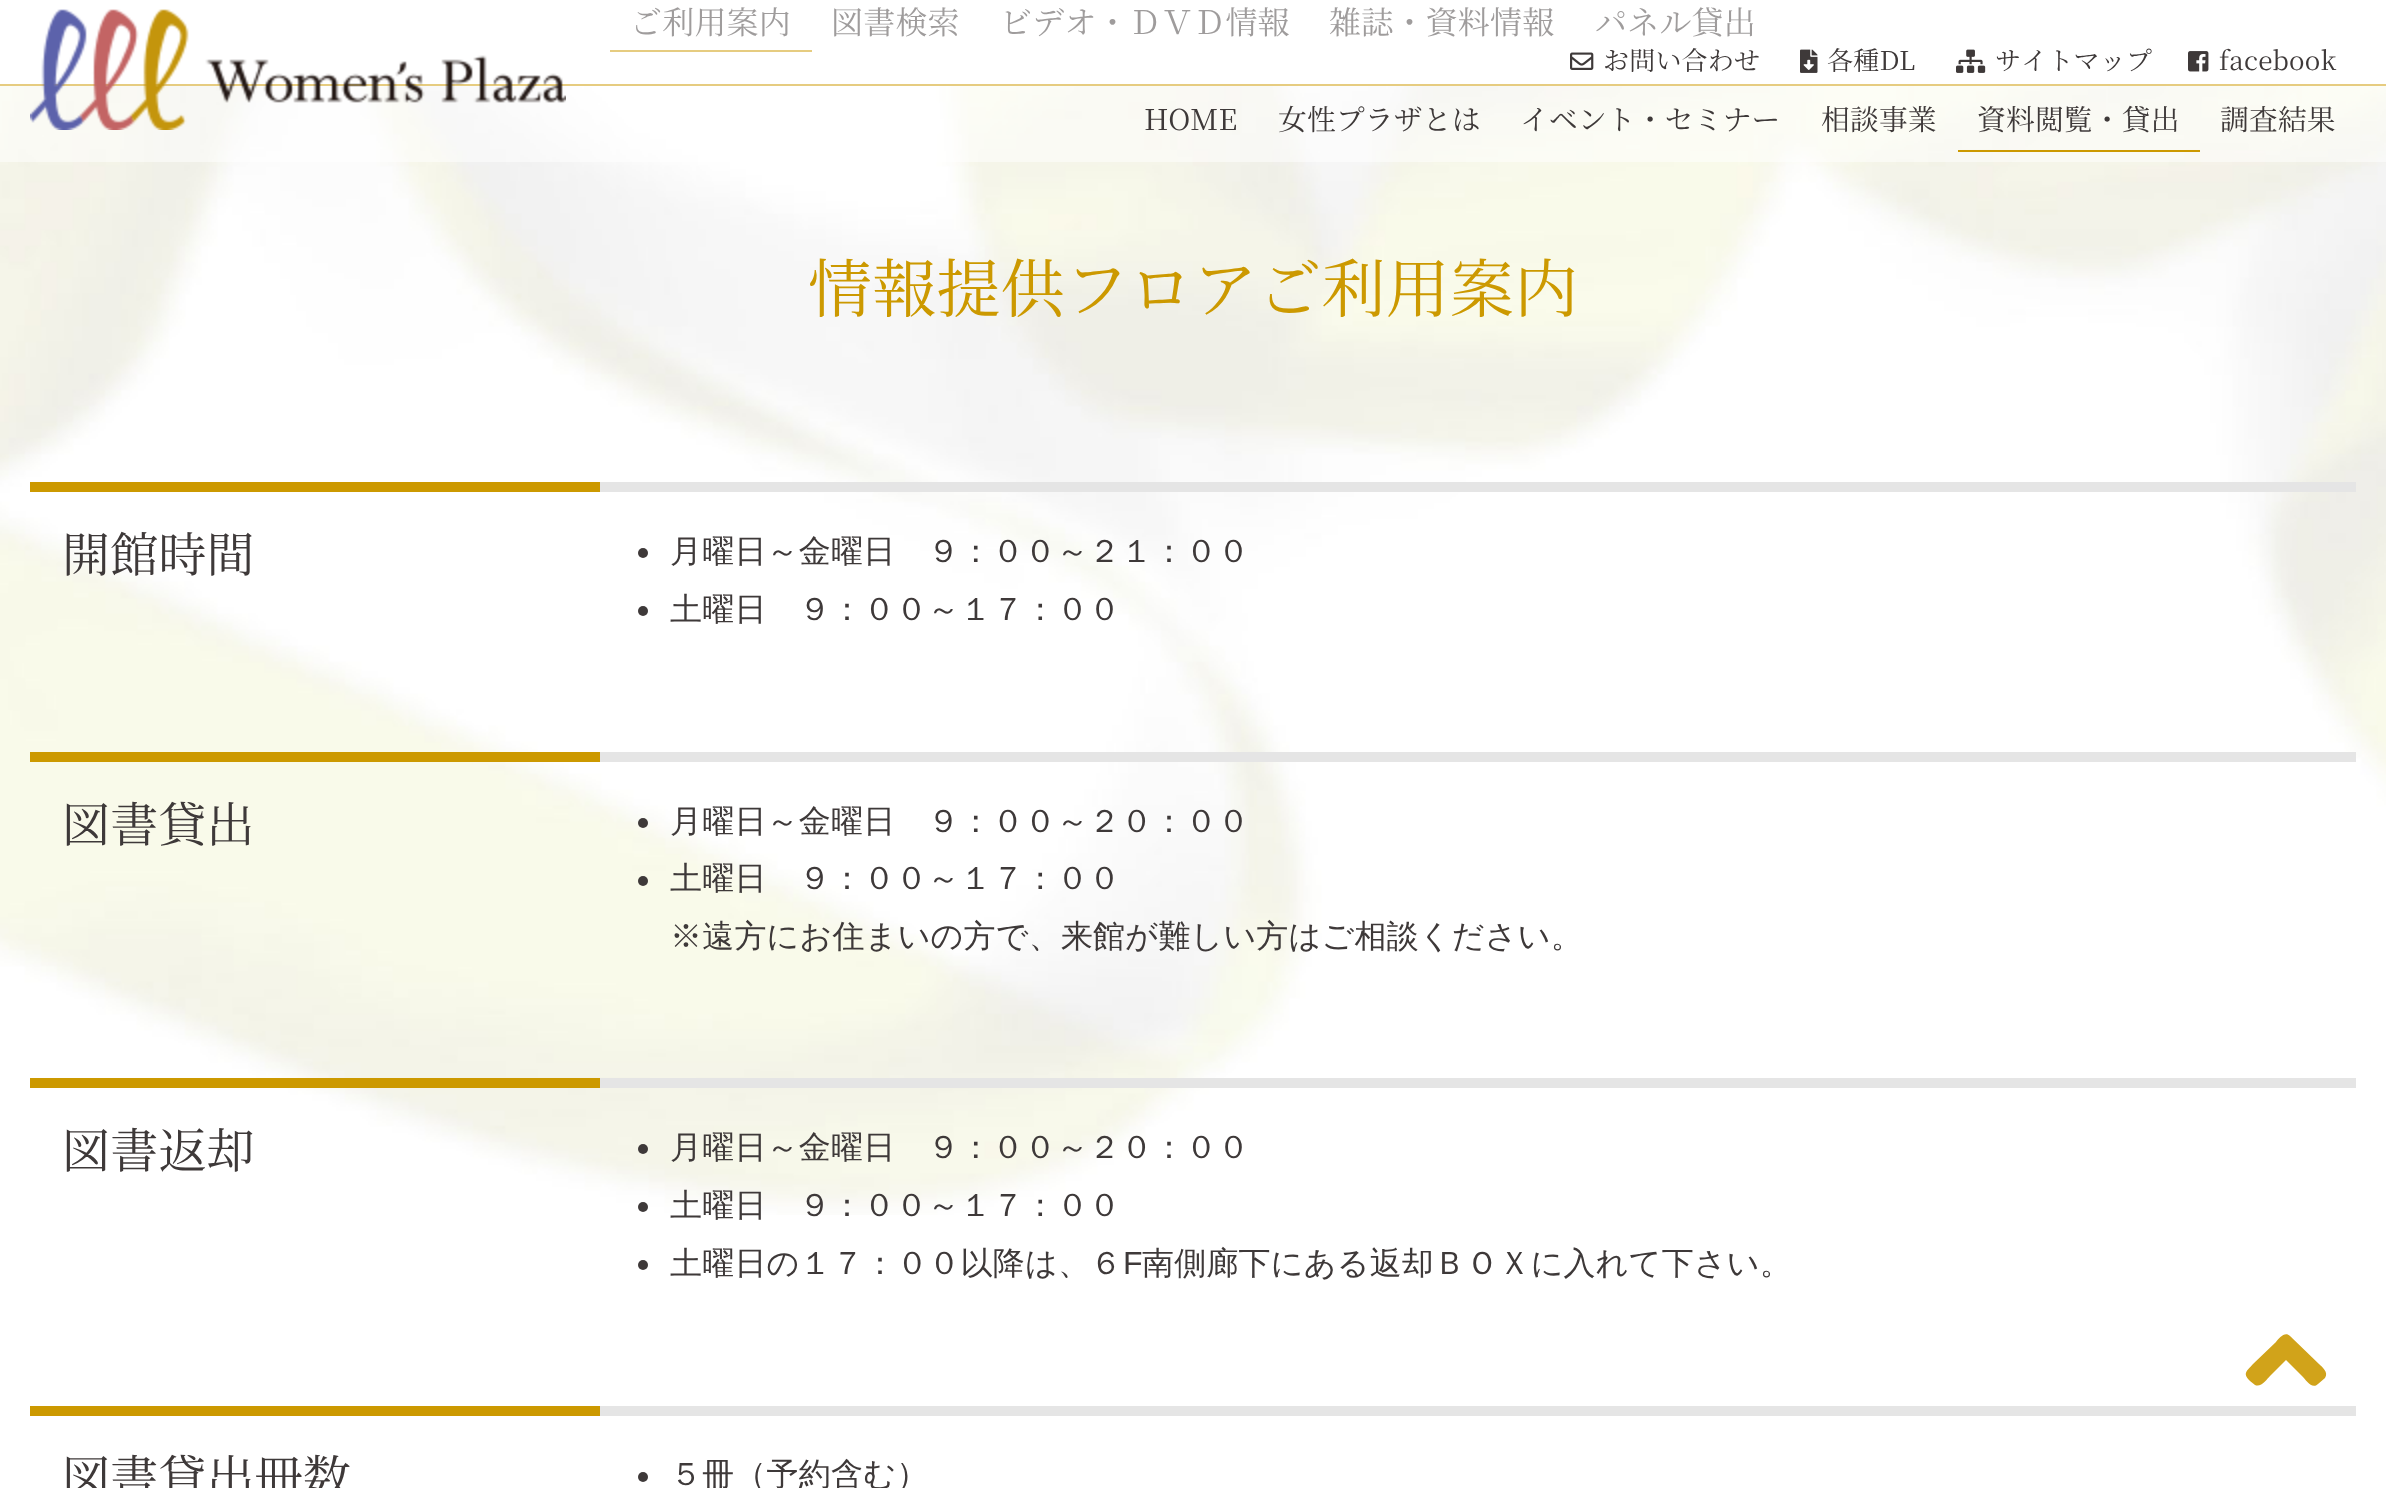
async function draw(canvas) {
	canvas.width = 2386;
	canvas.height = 1488;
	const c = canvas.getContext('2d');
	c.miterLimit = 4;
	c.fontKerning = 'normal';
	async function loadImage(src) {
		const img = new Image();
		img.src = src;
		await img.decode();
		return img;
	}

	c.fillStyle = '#fff';
	c.fillRect(0, 0, 2386, 1488);
	c.fillStyle = '#c90';
	c.fillRect(0, 84, 2386, 2);
	c.letterSpacing = '0.2px';
	c.font = '200 32px Noto Serif JP';
	c.fillStyle = '#3e3939';
	c.fillText('ご利用案内', 630, 34);
	c.fillStyle = '#c90';
	c.fillRect(610, 50, 202, 2);
	c.fillStyle = '#3e3939';
	for (const [text, x, y] of [
		['図書検索', 831, 34],
		['ビデオ・ＤＶＤ情報', 1000, 34],
		['雑誌・資料情報', 1329, 34],
		['パネル貸出', 1595, 34],
	]) {
		c.fillText(text, x, y);
	}
	c.drawImage(await loadImage('img1.png'), 0, 86, 2386, 1129);
	c.font = '200 64px Noto Serif JP';
	c.fillStyle = '#c90';
	c.fillText('情報提供フロアご利用案内', 808, 312);
	c.fillRect(30, 482, 570, 10);
	c.font = '200 48px Noto Serif JP';
	c.fillStyle = '#3e3939';
	c.fillText('開館時間', 62, 572);
	c.fillStyle = '#e5e5e5';
	c.fillRect(600, 482, 1756, 10);
	c.fillStyle = '#3e3939';
	c.beginPath();
	c.arc(643, 553, 5, 0, 2 * Math.PI);
	c.fill();
	c.font = '500 32px WenQuanYi Zen Hei';
	c.fillText('月曜日～金曜日　９：００～２１：００', 670, 562);
	c.beginPath();
	c.arc(643, 611, 5, 0, 2 * Math.PI);
	c.fill();
	c.fillText('土曜日　９：００～１７：００', 670, 620);
	c.fillStyle = '#c90';
	c.fillRect(30, 752, 570, 10);
	c.font = '200 48px Noto Serif JP';
	c.fillStyle = '#3e3939';
	c.fillText('図書貸出', 62, 842);
	c.fillStyle = '#e5e5e5';
	c.fillRect(600, 752, 1756, 10);
	c.fillStyle = '#3e3939';
	c.beginPath();
	c.arc(643, 823, 5, 0, 2 * Math.PI);
	c.fill();
	c.font = '500 32px WenQuanYi Zen Hei';
	c.fillText('月曜日～金曜日　９：００～２０：００', 670, 832);
	c.beginPath();
	c.arc(643, 881, 5, 0, 2 * Math.PI);
	c.fill();
	c.fillText('土曜日　９：００～１７：００', 670, 889);
	c.fillText('※遠方にお住まいの方で、来館が難しい方はご相談ください。', 670, 947);
	c.fillStyle = '#c90';
	c.fillRect(30, 1078, 570, 10);
	c.font = '200 48px Noto Serif JP';
	c.fillStyle = '#3e3939';
	c.fillText('図書返却', 62, 1168);
	c.fillStyle = '#e5e5e5';
	c.fillRect(600, 1078, 1756, 10);
	c.fillStyle = '#3e3939';
	c.beginPath();
	c.arc(643, 1149, 5, 0, 2 * Math.PI);
	c.fill();
	c.font = '500 32px WenQuanYi Zen Hei';
	c.fillText('月曜日～金曜日　９：００～２０：００', 670, 1158);
	c.beginPath();
	c.arc(643, 1207, 5, 0, 2 * Math.PI);
	c.fill();
	c.fillText('土曜日　９：００～１７：００', 670, 1216);
	c.beginPath();
	c.arc(643, 1265, 5, 0, 2 * Math.PI);
	c.fill();
	c.fillText('土曜日の１７：００以降は、６', 670, 1274);
	c.font = '32px Liberation Sans';
	c.fillText('F', 1123, 1274);
	c.font = '500 32px WenQuanYi Zen Hei';
	c.fillText('南側廊下にある返却ＢＯＸに入れて下さい。', 1142, 1274);
	c.fillStyle = '#c90';
	c.fillRect(30, 1406, 570, 10);
	c.font = '200 48px Noto Serif JP';
	c.fillStyle = '#3e3939';
	c.fillText('図書貸出冊数', 62, 1495);
	c.fillStyle = '#e5e5e5';
	c.fillRect(600, 1406, 1756, 10);
	c.fillStyle = '#3e3939';
	c.beginPath();
	c.arc(643, 1477, 5, 0, 2 * Math.PI);
	c.fill();
	c.font = '500 32px WenQuanYi Zen Hei';
	c.fillText('５冊（予約含む）', 670, 1485);
	c.fillStyle = '#ffffff80';
	c.fillRect(0, 7, 2386, 155);
	c.drawImage(await loadImage('img2.png'), 30, 9, 536, 121);
	c.drawImage(await loadImage('img3.png'), 1570, 52, 24, 18);
	c.font = '200 26px Noto Serif JP';
	c.fillStyle = '#3e3939';
	c.fillText('お問い合わせ', 1603, 70);
	c.drawImage(await loadImage('img4.png'), 1800, 49, 18, 24);
	c.fillText('各種DL', 1827, 70);
	c.drawImage(await loadImage('img5.png'), 1956, 49, 30, 24);
	c.fillText('サイトマップ', 1995, 70);
	c.drawImage(await loadImage('img6.png'), 2188, 51, 21, 21);
	c.fillText('facebook', 2219, 70);
	c.font = '200 28.75px Noto Serif JP';
	for (const [text, x, y] of [
		['HOME', 1144, 130],
		['女性プラザとは', 1278, 130],
		['イベント・セミナー', 1520, 130],
		['相談事業', 1821, 130],
	]) {
		c.fillText(text, x, y);
	}
	c.fillStyle = '#c90';
	c.fillRect(1958, 150, 242, 2);
	c.fillStyle = '#3e3939';
	c.fillText('資料閲覧・貸出', 1977, 130);
	c.fillText('調査結果', 2220, 130);
	c.fillStyle = '#d1a31a';
	c.beginPath();
	c.moveTo(2290, 1336);
	c.lineTo(2319, 1364);
	c.bezierCurveTo(2322, 1367, 2329, 1372, 2325, 1378);
	c.lineTo(2318, 1384);
	c.bezierCurveTo(2312, 1390, 2306, 1380, 2302, 1376);
	c.lineTo(2286, 1360);
	c.lineTo(2270, 1376);
	c.bezierCurveTo(2267, 1379, 2261, 1388, 2255, 1385);
	c.lineTo(2250, 1381);
	c.bezierCurveTo(2242, 1373, 2247, 1371, 2253, 1364);
	c.lineTo(2276, 1342);
	c.bezierCurveTo(2279, 1338, 2285, 1331, 2290, 1336);
	c.closePath();
	c.fill();
}

draw(document.querySelector('canvas'));
